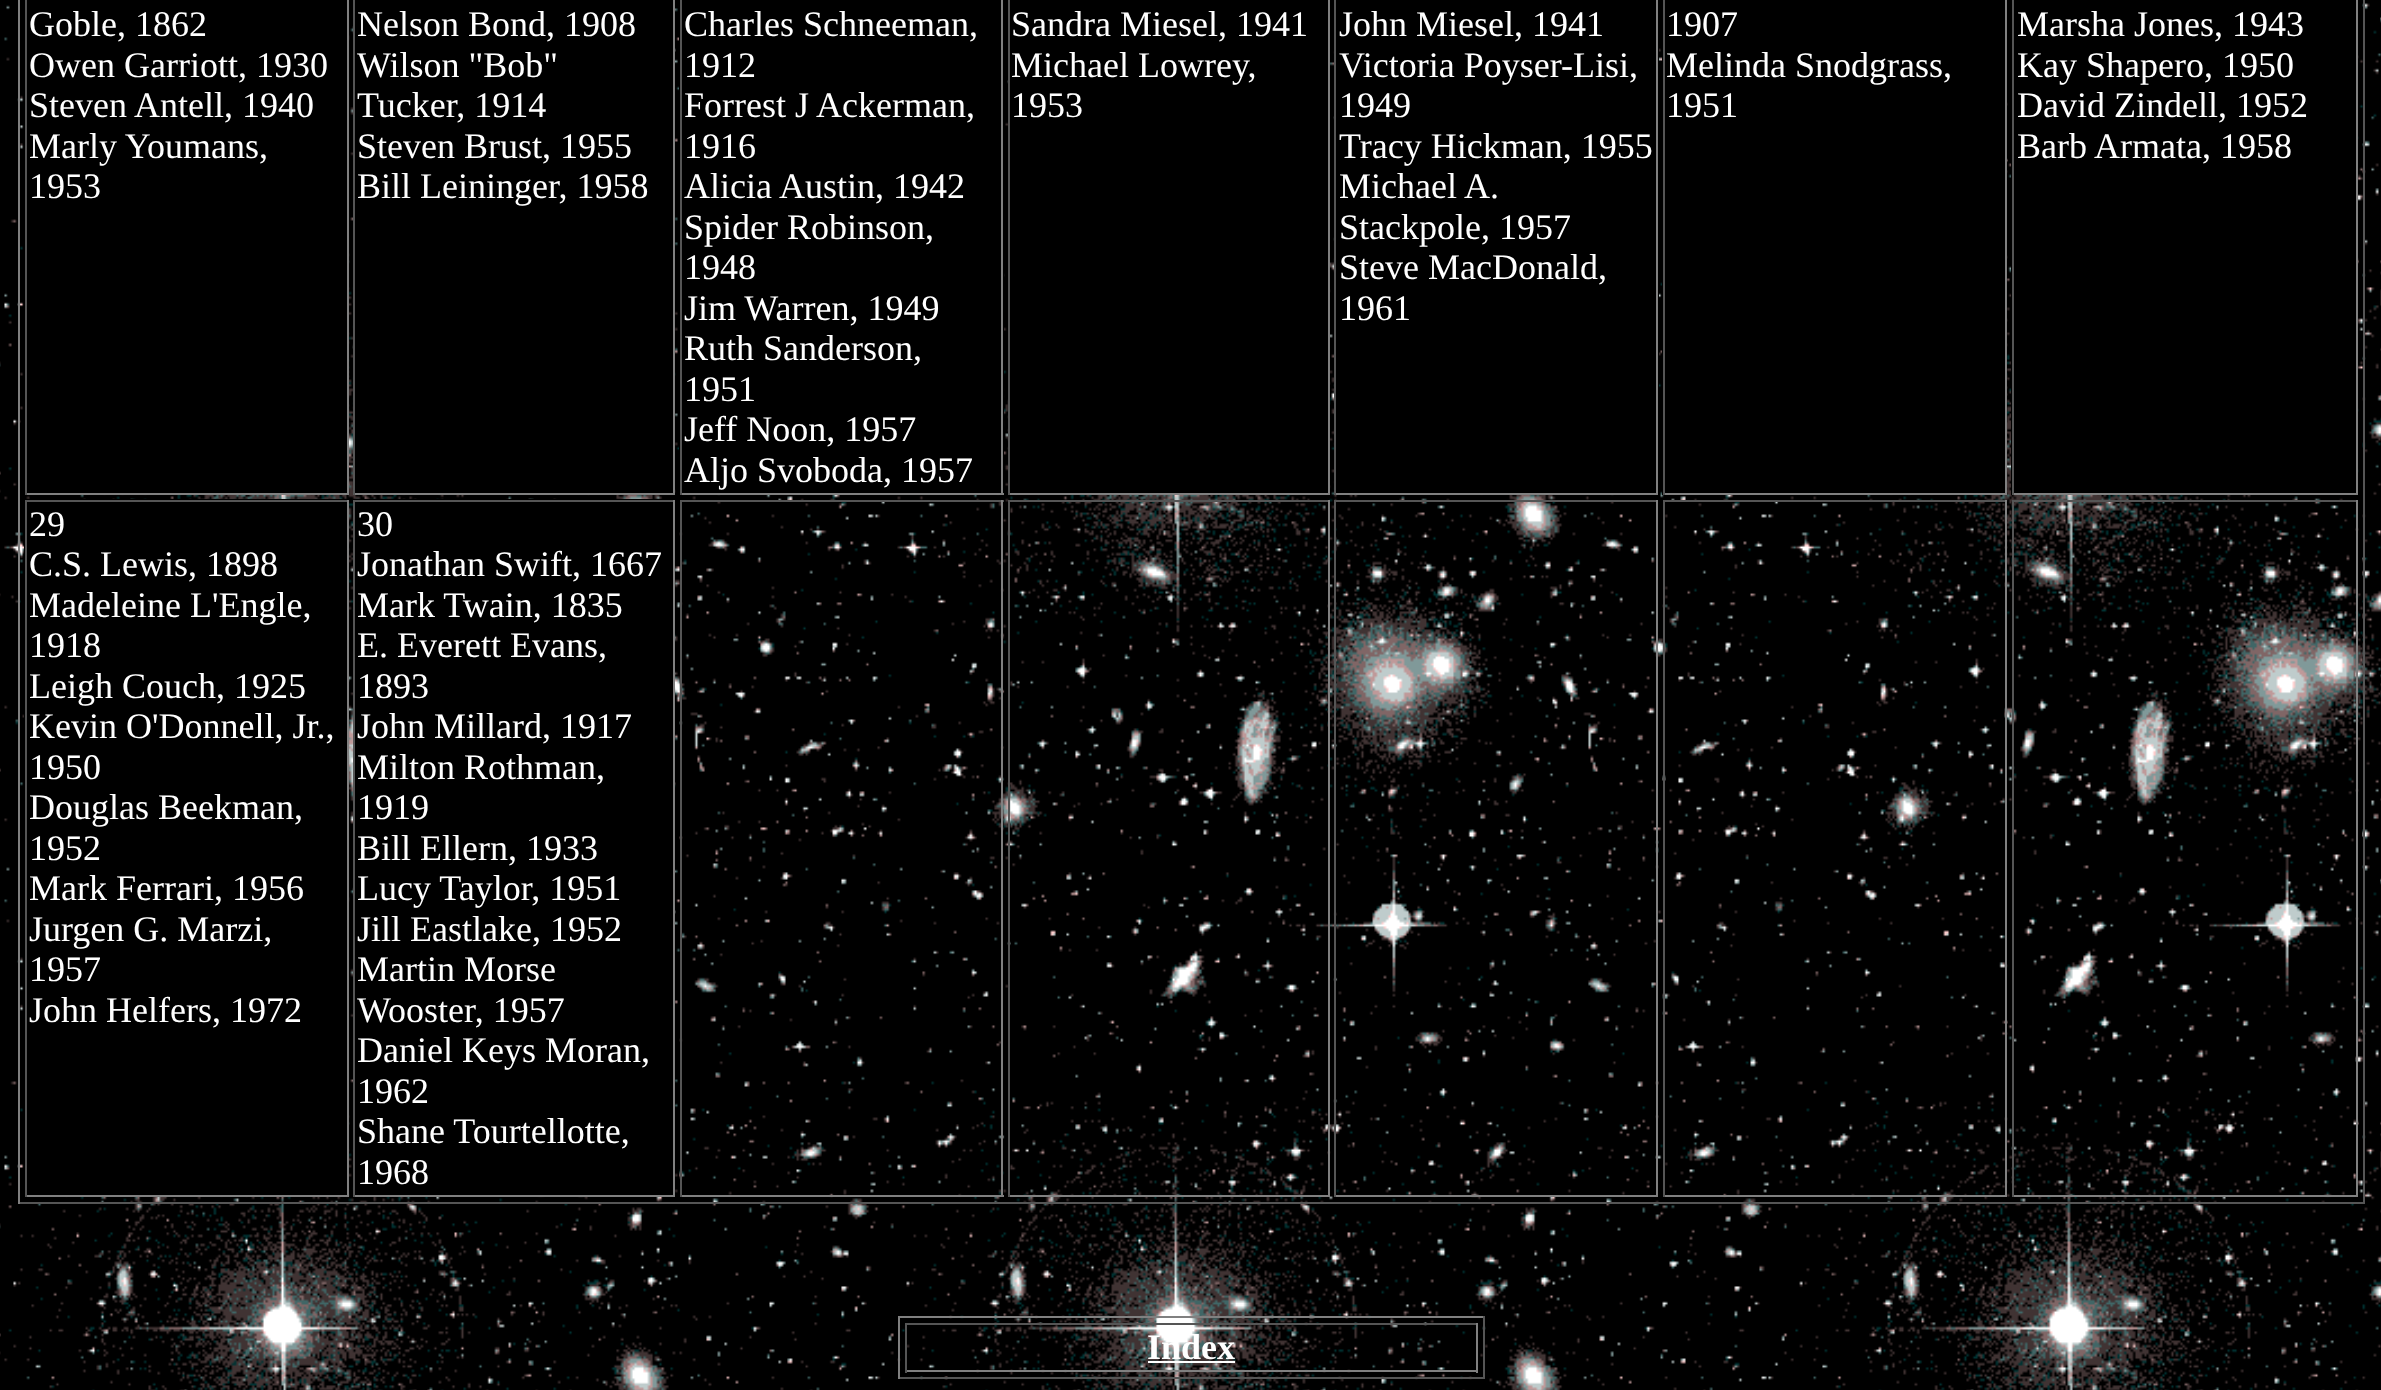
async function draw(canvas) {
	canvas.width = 2381;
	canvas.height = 1390;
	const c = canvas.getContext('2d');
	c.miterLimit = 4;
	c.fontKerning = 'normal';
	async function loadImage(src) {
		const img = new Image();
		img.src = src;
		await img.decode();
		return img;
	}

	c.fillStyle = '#fff';
	c.fillRect(0, 0, 2381, 1390);
	c.drawImage(await loadImage('img1.png'), 0, 0, 2381, 1390);
	for (const [x, y, w, h, color] of [
		[2363, 0, 2, 1204, '#555'],
		[18, 1202, 2347, 2, '#555'],
		[18, 0, 2, 1204, '#808080'],
		[27, 0, 320, 493, '#000'],
		[347, 0, 2, 495, '#808080'],
		[25, 493, 324, 2, '#808080'],
		[25, 0, 2, 495, '#555'],
	]) {
		c.fillStyle = color;
		c.fillRect(x, y, w, h);
	}
	c.font = '36px Liberation Serif';
	c.fillStyle = '#fff';
	for (const [text, x, y] of [
		['Goble, 1862', 29, 36],
		['Owen Garriott, 1930', 29, 77],
		['Steven Antell, 1940', 29, 117],
		['Marly Youmans,', 29, 158],
		['1953', 29, 198],
	]) {
		c.fillText(text, x, y);
	}
	for (const [x, y, w, h, color] of [
		[355, 0, 318, 493, '#000'],
		[673, 0, 2, 495, '#808080'],
		[353, 493, 322, 2, '#808080'],
		[353, 0, 2, 495, '#555'],
	]) {
		c.fillStyle = color;
		c.fillRect(x, y, w, h);
	}
	c.fillStyle = '#fff';
	for (const [text, x, y] of [
		['Nelson Bond, 1908', 357, 36],
		['Wilson "Bob"', 357, 77],
		['Tucker, 1914', 357, 117],
		['Steven Brust, 1955', 357, 158],
		['Bill Leininger, 1958', 357, 198],
	]) {
		c.fillText(text, x, y);
	}
	for (const [x, y, w, h, color] of [
		[679, 0, 325, 495, '#000'],
		[1001, 0, 2, 495, '#808080'],
		[680, 493, 324, 2, '#808080'],
		[680, 0, 2, 495, '#555'],
	]) {
		c.fillStyle = color;
		c.fillRect(x, y, w, h);
	}
	c.fillStyle = '#fff';
	for (const [text, x, y] of [
		['Charles Schneeman,', 684, 36],
		['1912', 684, 77],
		['Forrest J Ackerman,', 684, 117],
		['1916', 684, 158],
		['Alicia Austin, 1942', 684, 198],
		['Spider Robinson,', 684, 239],
		['1948', 684, 279],
		['Jim Warren, 1949', 684, 320],
		['Ruth Sanderson,', 684, 360],
		['1951', 684, 401],
		['Jeff Noon, 1957', 684, 441],
		['Aljo Svoboda, 1957', 684, 482],
	]) {
		c.fillText(text, x, y);
	}
	for (const [x, y, w, h, color] of [
		[1010, 0, 318, 493, '#000'],
		[1328, 0, 2, 495, '#808080'],
		[1008, 493, 322, 2, '#808080'],
		[1008, 0, 2, 495, '#555'],
	]) {
		c.fillStyle = color;
		c.fillRect(x, y, w, h);
	}
	c.fillStyle = '#fff';
	for (const [text, x, y] of [
		['Sandra Miesel, 1941', 1011, 36],
		['Michael Lowrey,', 1011, 77],
		['1953', 1011, 117],
	]) {
		c.fillText(text, x, y);
	}
	for (const [x, y, w, h, color] of [
		[1336, 0, 323, 495, '#000'],
		[1656, 0, 2, 495, '#808080'],
		[1334, 493, 324, 2, '#808080'],
		[1334, 0, 2, 495, '#555'],
	]) {
		c.fillStyle = color;
		c.fillRect(x, y, w, h);
	}
	c.fillStyle = '#fff';
	for (const [text, x, y] of [
		['John Miesel, 1941', 1339, 36],
		['Victoria Poyser-Lisi,', 1339, 77],
		['1949', 1339, 117],
		['Tracy Hickman, 1955', 1339, 158],
		['Michael A.', 1339, 198],
		['Stackpole, 1957', 1339, 239],
		['Steve MacDonald,', 1339, 279],
		['1961', 1339, 320],
	]) {
		c.fillText(text, x, y);
	}
	for (const [x, y, w, h, color] of [
		[1662, 0, 343, 495, '#000'],
		[2005, 0, 2, 495, '#808080'],
		[1663, 493, 344, 2, '#808080'],
		[1663, 0, 2, 495, '#555'],
	]) {
		c.fillStyle = color;
		c.fillRect(x, y, w, h);
	}
	c.fillStyle = '#fff';
	for (const [text, x, y] of [
		['1907', 1666, 36],
		['Melinda Snodgrass,', 1666, 77],
		['1951', 1666, 117],
	]) {
		c.fillText(text, x, y);
	}
	for (const [x, y, w, h, color] of [
		[2011, 0, 345, 495, '#000'],
		[2356, 0, 2, 495, '#808080'],
		[2012, 493, 346, 2, '#808080'],
		[2012, 0, 2, 495, '#555'],
	]) {
		c.fillStyle = color;
		c.fillRect(x, y, w, h);
	}
	c.fillStyle = '#fff';
	for (const [text, x, y] of [
		['Marsha Jones, 1943', 2017, 36],
		['Kay Shapero, 1950', 2017, 77],
		['David Zindell, 1952', 2017, 117],
		['Barb Armata, 1958', 2017, 158],
	]) {
		c.fillText(text, x, y);
	}
	for (const [x, y, w, h, color] of [
		[24, 499, 325, 698, '#000'],
		[25, 500, 324, 2, '#555'],
		[347, 500, 2, 697, '#808080'],
		[25, 1195, 324, 2, '#808080'],
		[25, 500, 2, 697, '#555'],
	]) {
		c.fillStyle = color;
		c.fillRect(x, y, w, h);
	}
	c.fillStyle = '#fff';
	for (const [text, x, y] of [
		['29', 29, 536],
		['C.S. Lewis, 1898', 29, 576],
		['Madeleine L\'Engle,', 29, 617],
		['1918', 29, 657],
		['Leigh Couch, 1925', 29, 698],
		['Kevin O\'Donnell, Jr.,', 29, 738],
		['1950', 29, 779],
		['Douglas Beekman,', 29, 819],
		['1952', 29, 860],
		['Mark Ferrari, 1956', 29, 900],
		['Jurgen G. Marzi,', 29, 941],
		['1957', 29, 981],
		['John Helfers, 1972', 29, 1022],
	]) {
		c.fillText(text, x, y);
	}
	for (const [x, y, w, h, color] of [
		[353, 499, 322, 696, '#000'],
		[353, 500, 322, 2, '#555'],
		[673, 500, 2, 697, '#808080'],
		[353, 1195, 322, 2, '#808080'],
		[353, 500, 2, 697, '#555'],
	]) {
		c.fillStyle = color;
		c.fillRect(x, y, w, h);
	}
	c.fillStyle = '#fff';
	for (const [text, x, y] of [
		['30', 357, 536],
		['Jonathan Swift, 1667', 357, 576],
		['Mark Twain, 1835', 357, 617],
		['E. Everett Evans,', 357, 657],
		['1893', 357, 698],
		['John Millard, 1917', 357, 738],
		['Milton Rothman,', 357, 779],
		['1919', 357, 819],
		['Bill Ellern, 1933', 357, 860],
		['Lucy Taylor, 1951', 357, 900],
		['Jill Eastlake, 1952', 357, 941],
		['Martin Morse', 357, 981],
		['Wooster, 1957', 357, 1022],
		['Daniel Keys Moran,', 357, 1062],
		['1962', 357, 1103],
		['Shane Tourtellotte,', 357, 1143],
		['1968', 357, 1184],
	]) {
		c.fillText(text, x, y);
	}
	for (const [x, y, w, h, color] of [
		[680, 500, 324, 2, '#555'],
		[1001, 500, 2, 697, '#808080'],
		[680, 1195, 324, 2, '#808080'],
		[680, 500, 2, 697, '#555'],
		[1008, 500, 322, 2, '#555'],
		[1328, 500, 2, 697, '#808080'],
		[1008, 1195, 322, 2, '#808080'],
		[1008, 500, 2, 697, '#555'],
		[1334, 500, 324, 2, '#555'],
		[1656, 500, 2, 697, '#808080'],
		[1334, 1195, 324, 2, '#808080'],
		[1334, 500, 2, 697, '#555'],
		[1663, 500, 344, 2, '#555'],
		[2005, 500, 2, 697, '#808080'],
		[1663, 1195, 344, 2, '#808080'],
		[1663, 500, 2, 697, '#555'],
		[2012, 500, 346, 2, '#555'],
		[2356, 500, 2, 697, '#808080'],
		[2012, 1195, 346, 2, '#808080'],
		[2012, 500, 2, 697, '#555'],
		[898, 1316, 587, 2, '#808080'],
		[1483, 1316, 2, 63, '#555'],
		[898, 1377, 587, 2, '#555'],
		[898, 1316, 2, 63, '#808080'],
		[905, 1323, 573, 2, '#555'],
		[1476, 1323, 2, 50, '#808080'],
		[905, 1370, 573, 2, '#808080'],
		[905, 1323, 2, 50, '#555'],
	]) {
		c.fillStyle = color;
		c.fillRect(x, y, w, h);
	}
	c.font = 'bold 36px Liberation Serif';
	c.fillStyle = '#fff';
	c.fillText('Index', 1147, 1359);
	c.fillRect(1148, 1361, 87, 2);
}

draw(document.querySelector('canvas'));
